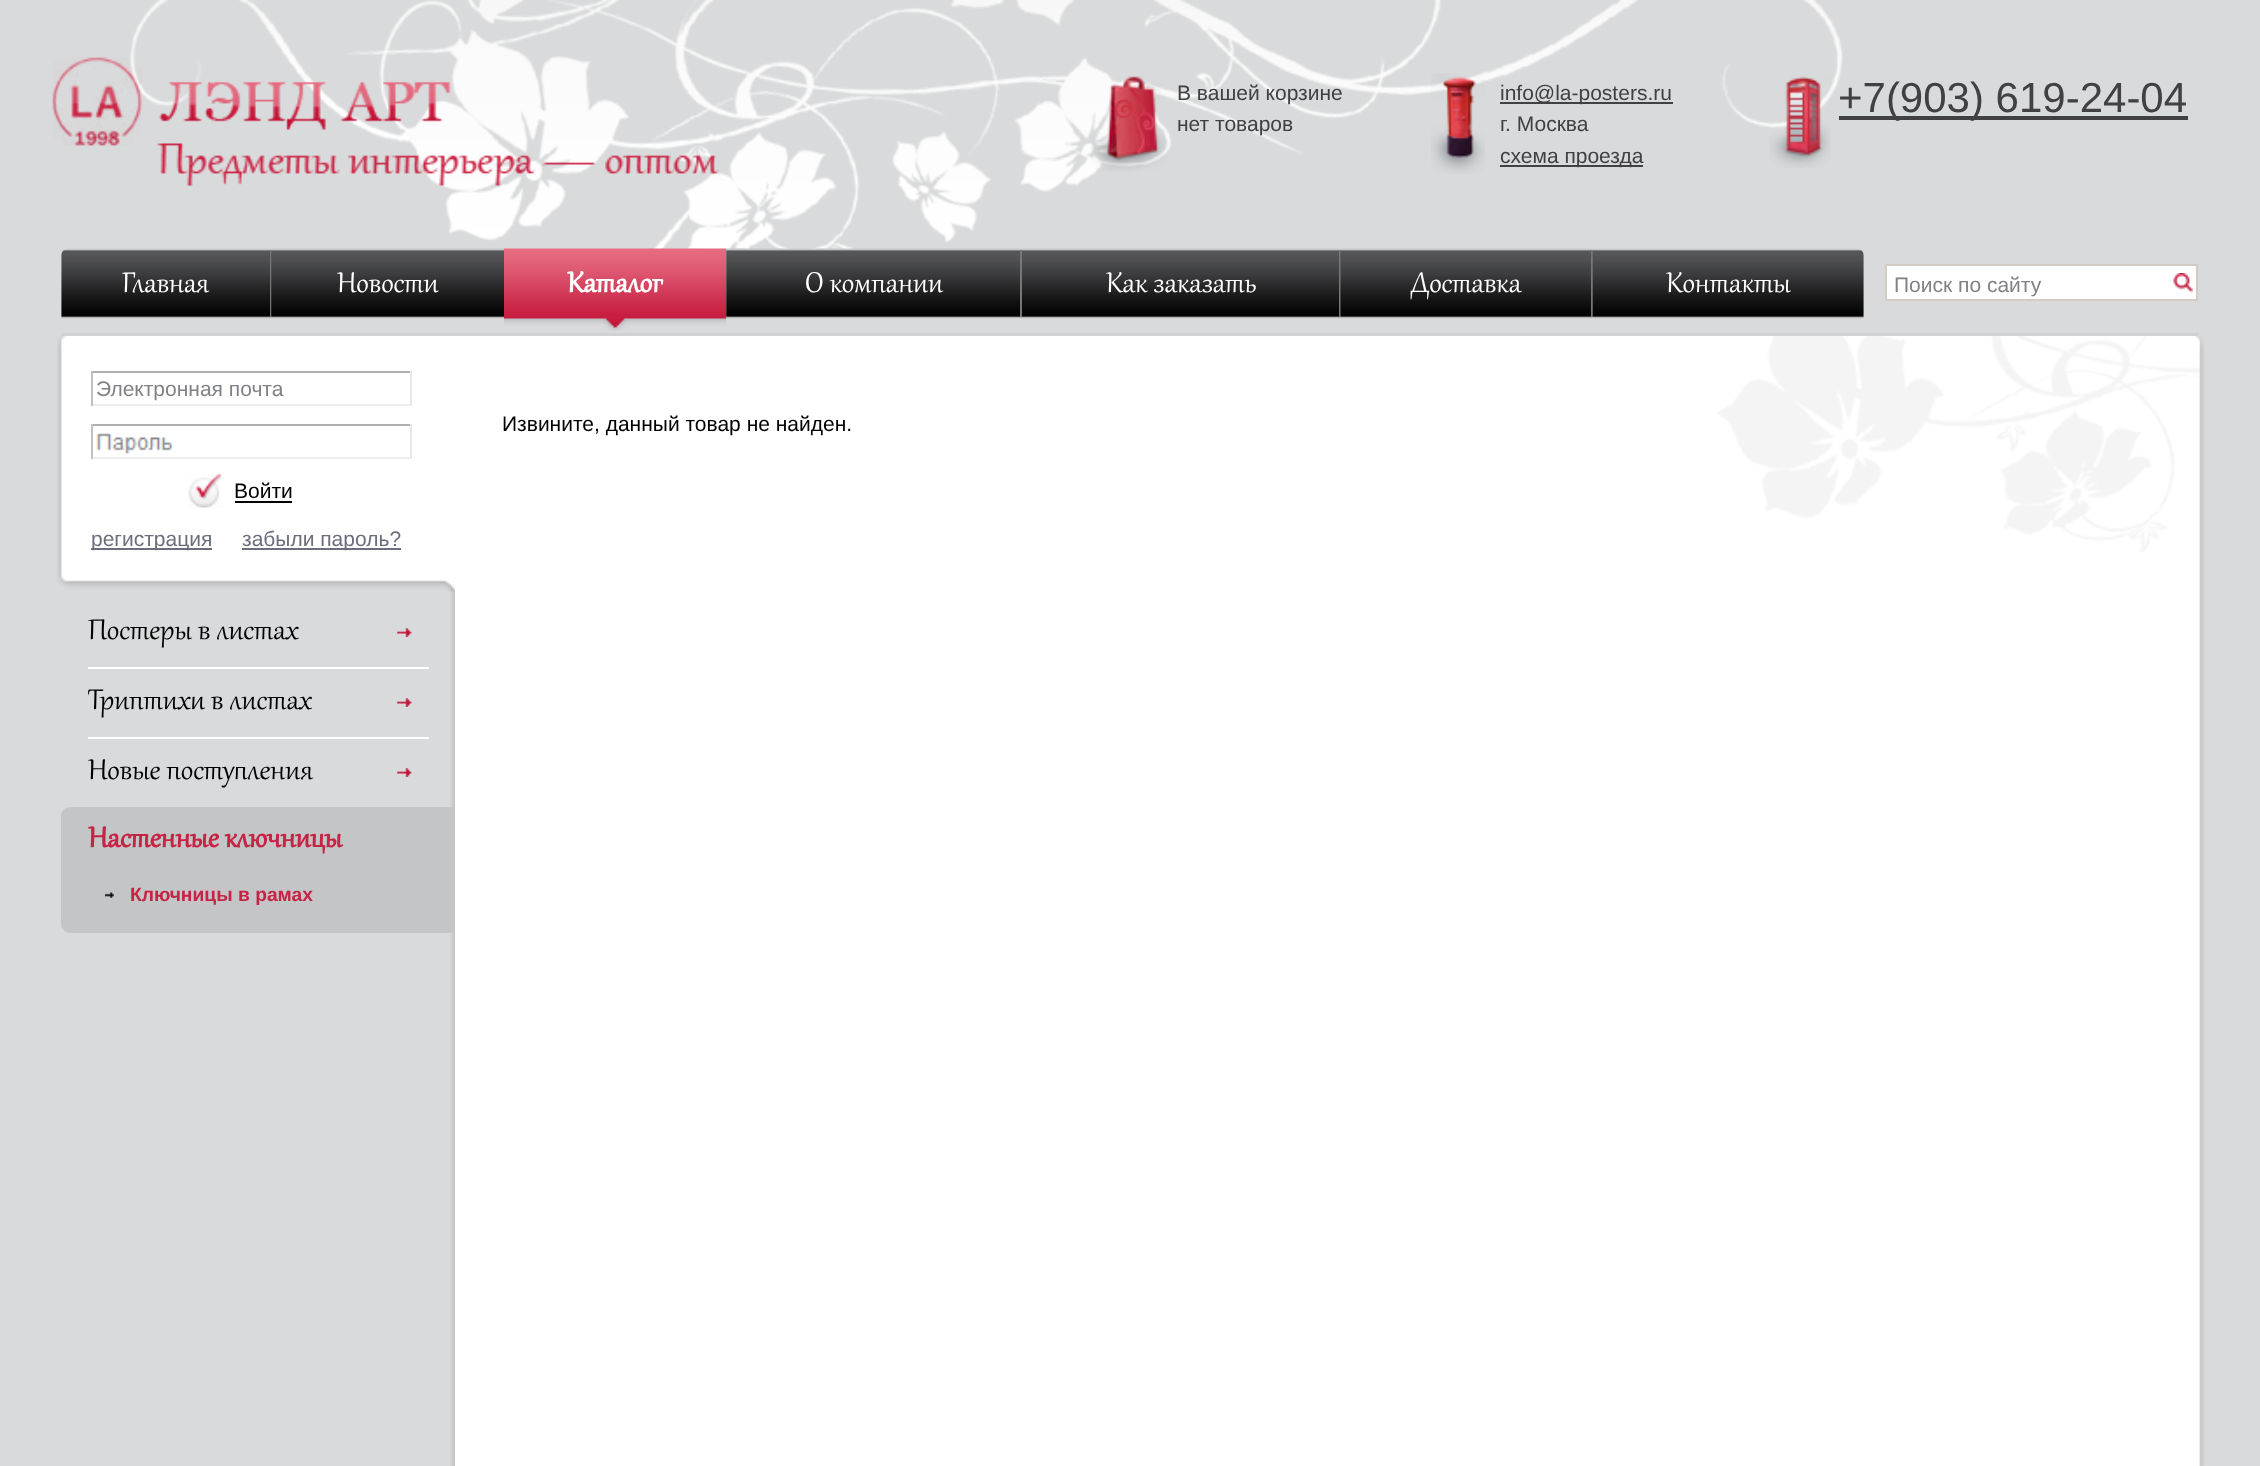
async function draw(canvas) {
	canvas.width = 2260;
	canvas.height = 1466;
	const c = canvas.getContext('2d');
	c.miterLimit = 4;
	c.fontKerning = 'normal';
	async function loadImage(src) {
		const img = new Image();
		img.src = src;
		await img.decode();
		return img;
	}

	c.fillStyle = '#d9dadb';
	c.fillRect(0, 0, 2260, 1466);
	c.drawImage(await loadImage('img1.png'), 129, 0, 1714, 295);
	c.drawImage(await loadImage('img2.png'), 52, 57, 668, 129);
	c.drawImage(await loadImage('img3.png'), 1090, 76, 78, 96);
	c.font = '21px Liberation Sans';
	c.fillStyle = '#414042';
	c.fillText('В вашей корзине', 1177, 100);
	c.fillText('нет товаров', 1177, 131);
	c.drawImage(await loadImage('img4.png'), 1431, 73, 54, 101);
	c.fillRect(1500, 102, 173, 2);
	c.fillText('info@la-posters.ru', 1500, 100);
	c.fillText('г. Москва', 1500, 131);
	c.fillRect(1500, 165, 143, 2);
	c.fillText('схема проезда', 1500, 163);
	c.drawImage(await loadImage('img5.png'), 1769, 76, 62, 92);
	c.fillRect(1839, 116, 349, 4);
	c.font = '42px Liberation Sans';
	c.fillText('+7(903) 619-24-04', 1838, 112);
	c.fillStyle = '#d0d1d2';
	c.fillRect(61, 333, 2137, 3);
	c.drawImage(await loadImage('img6.png'), 61, 248, 211, 71);
	c.fillStyle = '#777';
	c.fillRect(270, 250, 2, 67);
	c.font = '35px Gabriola';
	c.fillStyle = '#fff';
	c.fillText('Главная', 122, 292);
	c.drawImage(await loadImage('img7.png'), 271, 248, 233, 71);
	c.fillText('Новости', 337, 292);
	c.drawImage(await loadImage('img8.png'), 504, 248, 223, 83);
	c.font = 'bold 35px Gabriola';
	c.fillText('Каталог', 567, 292);
	c.drawImage(await loadImage('img9.png'), 726, 248, 296, 71);
	c.fillStyle = '#777';
	c.fillRect(1020, 250, 2, 67);
	c.font = '35px Gabriola';
	c.fillStyle = '#fff';
	c.fillText('О компании', 805, 292);
	c.drawImage(await loadImage('img10.png'), 1022, 248, 319, 71);
	c.fillStyle = '#777';
	c.fillRect(1339, 250, 2, 67);
	c.fillStyle = '#fff';
	c.fillText('Как заказать', 1106, 292);
	c.drawImage(await loadImage('img11.png'), 1340, 248, 253, 71);
	c.fillStyle = '#777';
	c.fillRect(1591, 250, 2, 67);
	c.fillStyle = '#fff';
	c.fillText('Доставка', 1410, 292);
	c.drawImage(await loadImage('img12.png'), 1592, 248, 272, 71);
	c.fillText('Контакты', 1666, 292);
	c.beginPath();
	c.rect(1886, 265, 311, 35);
	c.fill();
	c.strokeStyle = '#d3ccc4';
	c.lineWidth = 2;
	c.stroke();
	c.font = '21px Liberation Sans';
	c.fillStyle = '#808285';
	c.fillText('Поиск по сайту', 1894, 292);
	c.drawImage(await loadImage('img13.png'), 2173, 273, 20, 20);
	c.drawImage(await loadImage('img14.png'), 450, 582, 5, 884);
	c.drawImage(await loadImage('img15.png'), 57, 336, 398, 256);
	for (const [x, y, w, h, color] of [
		[91, 371, 320, 2, '#adafb0'],
		[410, 371, 2, 35, '#e6e7e9'],
		[91, 404, 320, 2, '#edeeef'],
		[91, 371, 2, 35, '#c0c1c3'],
	]) {
		c.fillStyle = color;
		c.fillRect(x, y, w, h);
	}
	c.fillStyle = '#808285';
	c.fillText('Электронная почта', 96, 396);
	c.drawImage(await loadImage('img16.png'), 96, 433, 78, 21);
	for (const [x, y, w, h, color] of [
		[91, 424, 320, 2, '#adafb0'],
		[410, 424, 2, 35, '#e6e7e9'],
		[91, 457, 320, 2, '#edeeef'],
		[91, 424, 2, 35, '#c0c1c3'],
	]) {
		c.fillStyle = color;
		c.fillRect(x, y, w, h);
	}
	c.drawImage(await loadImage('img17.png'), 188, 473, 35, 35);
	c.fillStyle = '#000';
	c.fillText('Войти', 234, 498);
	c.fillRect(235, 501, 57, 2);
	c.fillStyle = '#6c6e7b';
	c.fillRect(91, 548, 121, 2);
	c.fillText('регистрация', 91, 546);
	c.fillRect(242, 548, 159, 2);
	c.fillText('забыли пароль?', 242, 546);
	c.drawImage(await loadImage('img18.png'), 397, 628, 15, 9);
	c.fillStyle = '#fff';
	c.fillRect(88, 667, 341, 2);
	c.font = '35px Gabriola';
	c.fillStyle = '#000';
	c.fillText('Постеры в листах', 88, 639);
	c.drawImage(await loadImage('img18.png'), 397, 698, 15, 9);
	c.fillStyle = '#fff';
	c.fillRect(88, 737, 341, 2);
	c.fillStyle = '#000';
	c.fillText('Триптихи в листах', 88, 709);
	c.drawImage(await loadImage('img18.png'), 397, 768, 15, 9);
	c.fillText('Новые поступления', 88, 779);
	c.fillStyle = '#c4c5c6';
	c.beginPath();
	c.roundRect(61, 807, 394, 126, [9, 0, 0, 9]);
	c.fill();
	c.font = 'bold 35px Gabriola';
	c.fillStyle = '#c72345';
	c.fillText('Настенные ключницы', 88, 847);
	c.drawImage(await loadImage('img19.png'), 105, 892, 9, 6);
	c.font = 'bold 19.25px Liberation Sans';
	c.fillText('Ключницы в рамах', 130, 901);
	c.fillStyle = '#fff';
	c.fillRect(455, 336, 1738, 1130);
	c.drawImage(await loadImage('img20.png'), 1718, 336, 475, 216);
	c.font = '21px Liberation Sans';
	c.fillStyle = '#000';
	c.fillText('Извините, данный товар не найден.', 502, 431);
	c.drawImage(await loadImage('img21.png'), 2193, 336, 12, 1130);
}

draw(document.querySelector('canvas'));
